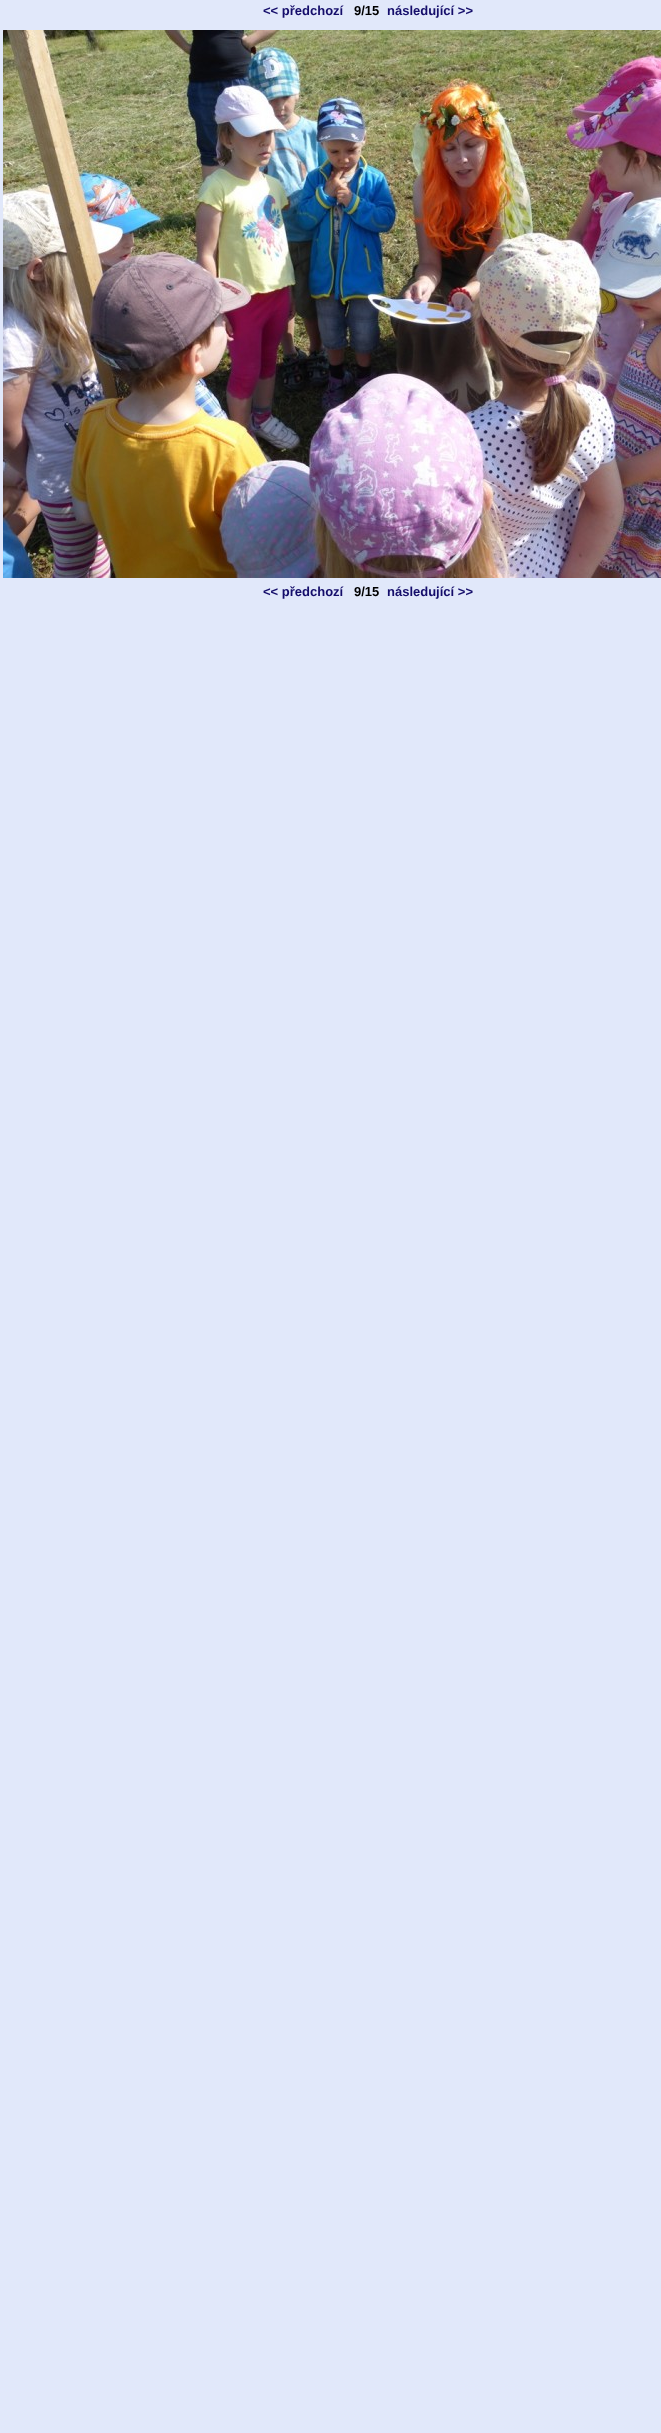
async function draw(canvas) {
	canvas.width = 661;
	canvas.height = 2433;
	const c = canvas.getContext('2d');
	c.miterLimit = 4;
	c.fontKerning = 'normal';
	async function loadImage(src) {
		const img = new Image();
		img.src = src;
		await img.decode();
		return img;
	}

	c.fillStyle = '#e1e8fa';
	c.fillRect(0, 0, 661, 2433);
	c.font = 'bold 13px Liberation Sans';
	c.fillStyle = '#150e6b';
	c.fillText('<< předchozí', 263, 15);
	c.fillStyle = '#000';
	c.fillText('9/15', 354, 15);
	c.fillStyle = '#150e6b';
	c.fillText('následující >>', 387, 15);
	c.drawImage(await loadImage('img1.png'), 3, 30, 658, 548);
	c.fillText('<< předchozí', 263, 596);
	c.fillStyle = '#000';
	c.fillText('9/15', 354, 596);
	c.fillStyle = '#150e6b';
	c.fillText('následující >>', 387, 596);
}

draw(document.querySelector('canvas'));
